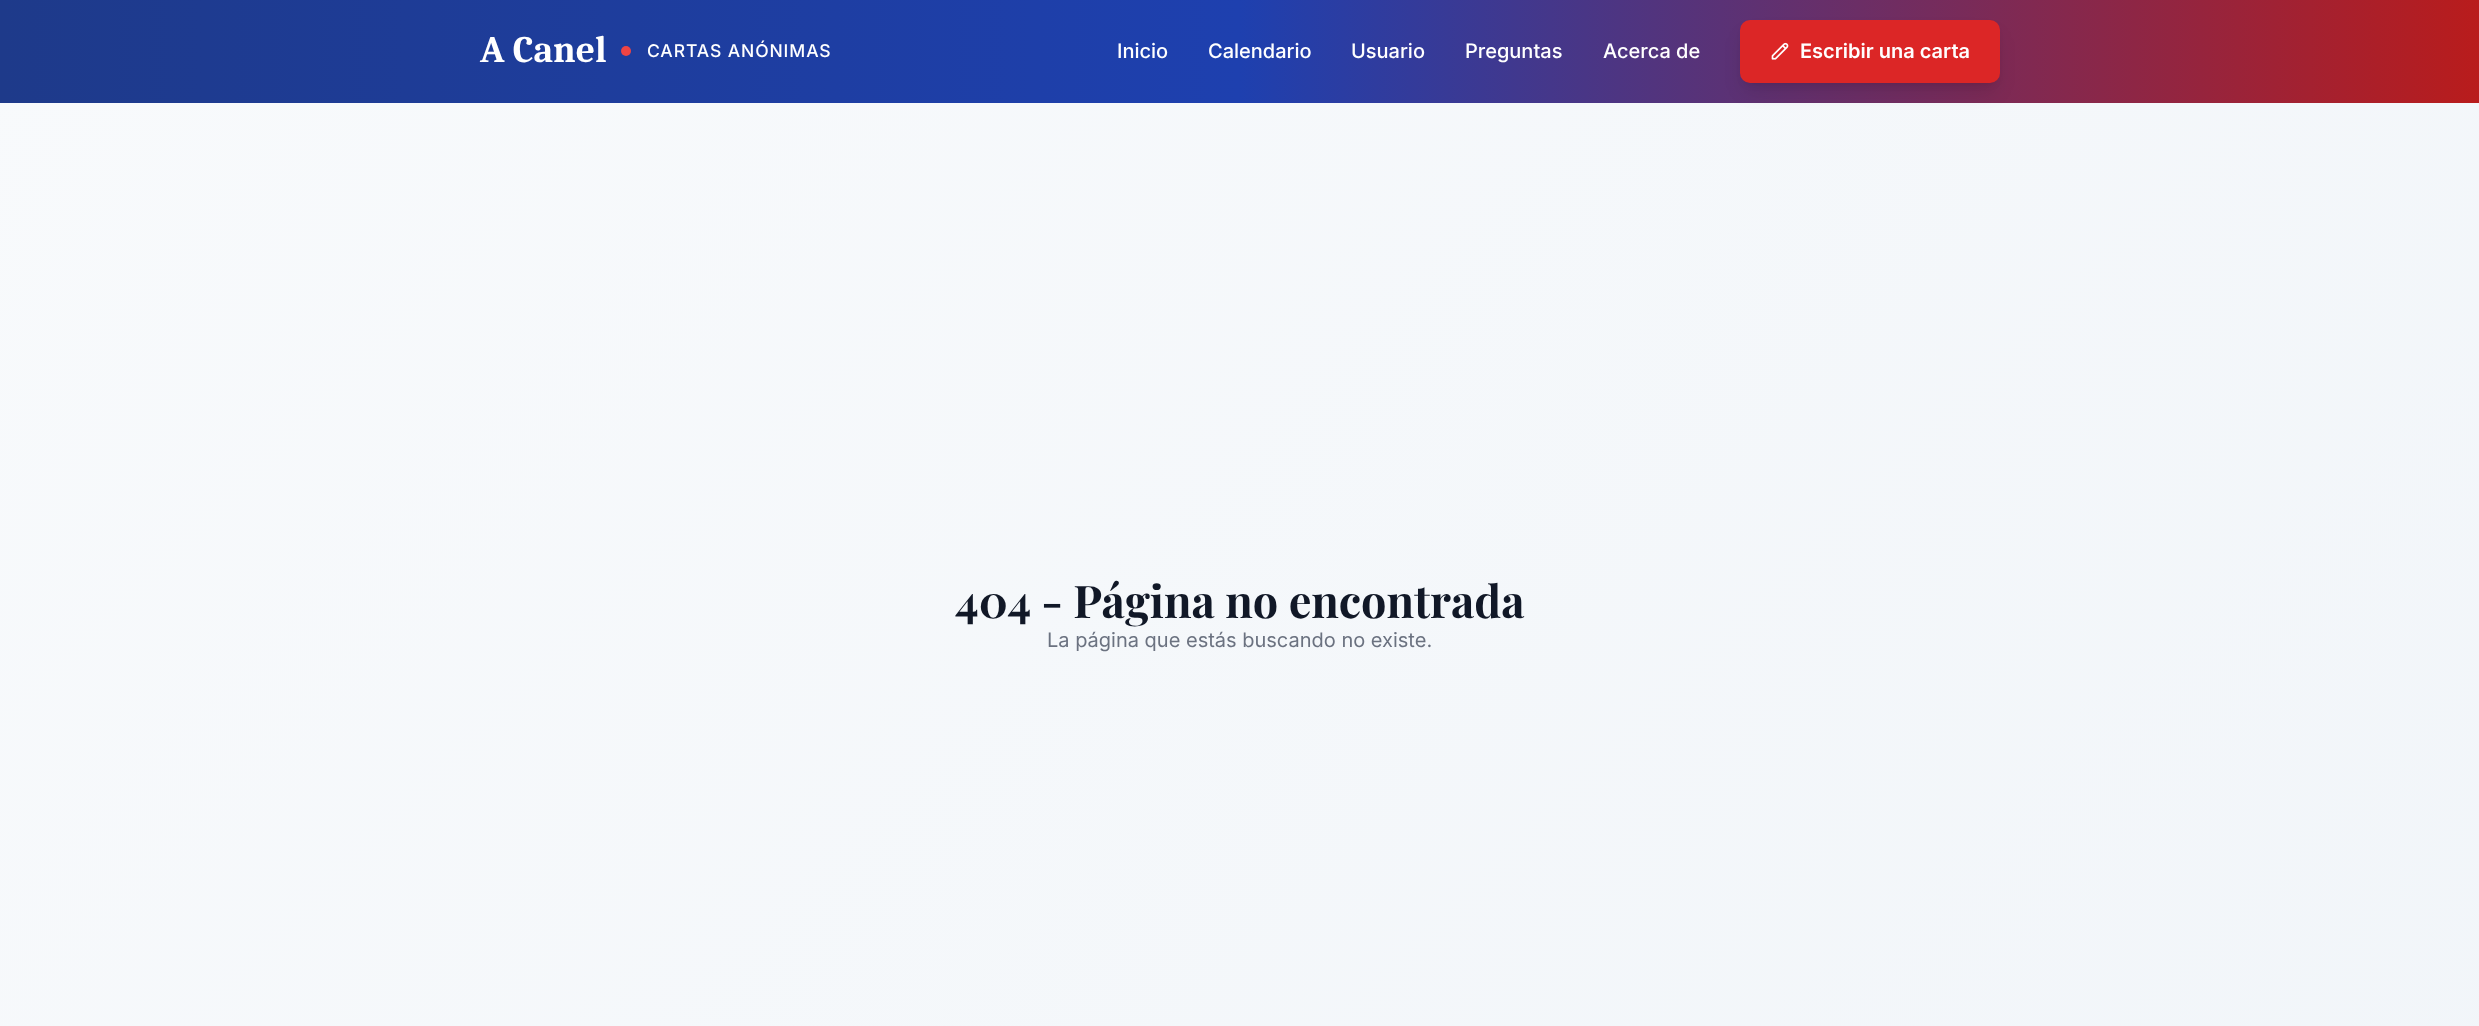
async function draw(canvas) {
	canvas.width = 2479;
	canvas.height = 1026;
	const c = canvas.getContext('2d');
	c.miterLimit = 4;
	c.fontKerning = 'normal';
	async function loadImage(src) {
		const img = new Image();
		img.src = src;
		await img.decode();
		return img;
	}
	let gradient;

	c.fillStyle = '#fff';
	c.fillRect(0, 0, 2479, 1026);
	gradient = c.createLinearGradient(270, -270, 2210, 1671);
	gradient.addColorStop(0, '#f8fafc');
	gradient.addColorStop(1, '#f1f5f9');
	c.fillStyle = gradient;
	c.fillRect(0, 103, 2479, 923);
	gradient = c.createLinearGradient(0, 51, 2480, 51);
	gradient.addColorStop(0, '#1e3a8a');
	gradient.addColorStop(0.5, '#1e40af');
	gradient.addColorStop(1, '#b91c1c');
	c.fillStyle = gradient;
	c.fillRect(0, 0, 2479, 103);
	c.font = 'bold 37.5px Caladea';
	c.fillStyle = '#fff';
	c.fillText('A Canel', 480, 62);
	c.fillStyle = '#ef4444';
	c.beginPath();
	c.arc(626, 51, 5, 0, 2 * Math.PI);
	c.fill();
	c.letterSpacing = '0.9px';
	c.font = '500 17.5px Inter';
	c.fillStyle = '#fff';
	c.fillText('CARTAS ANÓNIMAS', 647, 57);
	c.letterSpacing = '0px';
	c.font = '500 20px Inter';
	for (const [text, x, y] of [
		['Inicio', 1117, 58],
		['Calendario', 1208, 58],
		['Usuario', 1351, 58],
		['Preguntas', 1465, 58],
		['Acerca de', 1603, 58],
	]) {
		c.fillText(text, x, y);
	}
	c.fillStyle = '#0000001a';
	c.filter = 'blur(4px)';
	c.beginPath();
	c.roundRect(1745, 30, 250, 53, 5);
	c.fill();
	c.filter = 'none';
	c.filter = 'blur(9.5px)';
	c.beginPath();
	c.roundRect(1744, 36, 252, 55, 6);
	c.fill();
	c.filter = 'none';
	c.fillStyle = '#dc2626';
	c.beginPath();
	c.roundRect(1740, 20, 260, 63, 10);
	c.fill();
	c.drawImage(await loadImage('img1.png'), 1771, 42, 18, 18);
	c.font = '600 20px Inter';
	c.fillStyle = '#fff';
	c.fillText('Escribir una carta', 1800, 58);
	c.font = 'bold 45px Playfair Display';
	c.fillStyle = '#111827';
	c.fillText('404 - Página no encontrada', 955, 618);
	c.font = '20px Inter';
	c.fillStyle = '#6b7280';
	c.fillText('La página que estás buscando no existe.', 1047, 647);
}

draw(document.querySelector('canvas'));
